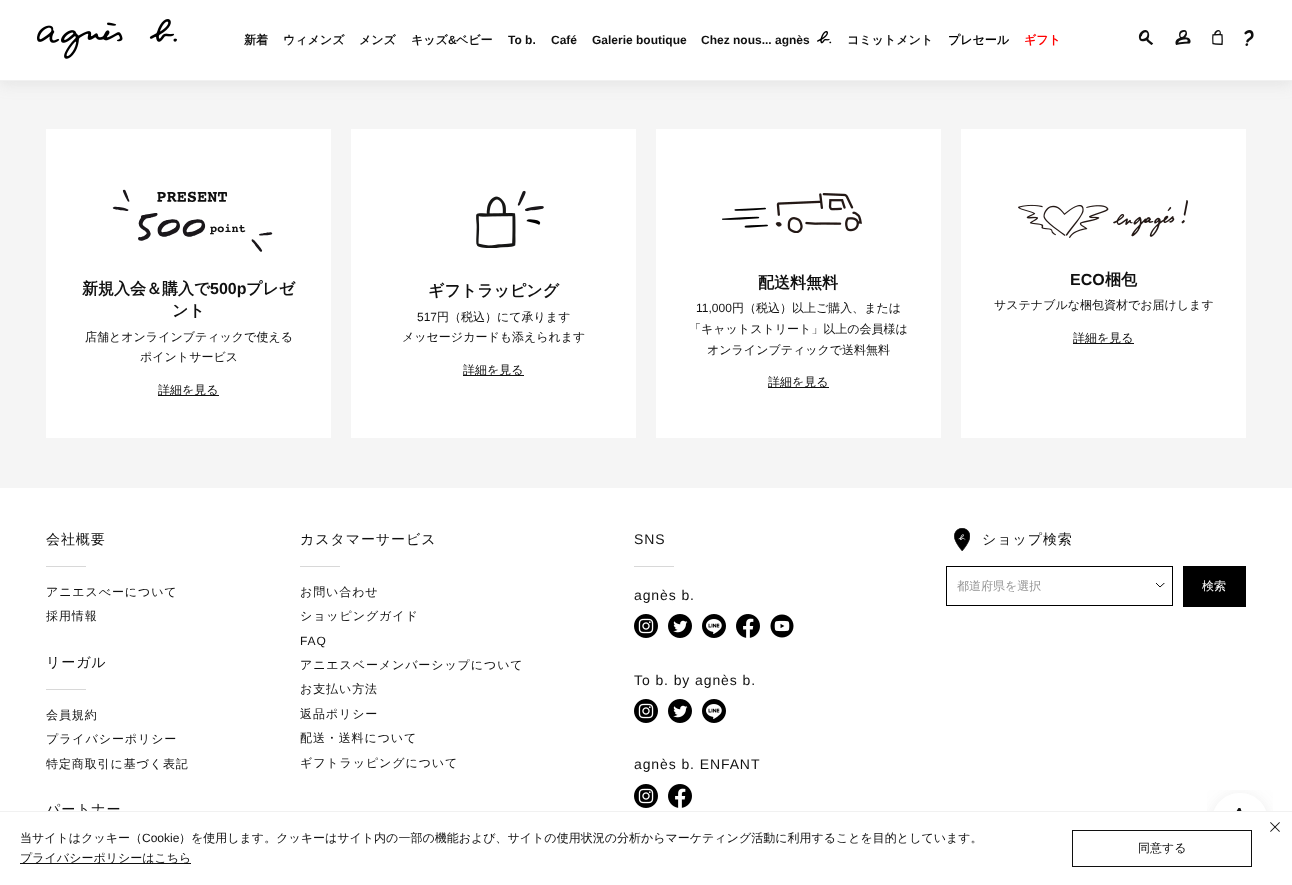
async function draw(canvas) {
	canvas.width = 1292;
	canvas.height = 885;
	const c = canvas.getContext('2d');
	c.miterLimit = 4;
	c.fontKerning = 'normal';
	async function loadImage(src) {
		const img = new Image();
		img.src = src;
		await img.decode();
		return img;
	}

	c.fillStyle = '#fff';
	c.fillRect(0, 0, 1292, 885);
	c.fillStyle = '#f5f5f5';
	c.fillRect(0, 81, 1292, 407);
	c.fillStyle = '#95959533';
	c.filter = 'blur(8px)';
	c.beginPath();
	c.rect(0, 2, 1292, 81);
	c.fill();
	c.filter = 'none';
	c.fillStyle = '#fff';
	c.fillRect(0, 0, 1292, 80);
	c.fillStyle = '#f1f1f1';
	c.fillRect(0, 80, 1292, 1);
	c.drawImage(await loadImage('img1.png'), 37, 19, 140, 40);
	c.font = 'bold 12px WenQuanYi Zen Hei';
	c.fillStyle = '#101010';
	for (const [text, x, y] of [
		['新着', 244, 44],
		['ウィメンズ', 283, 44],
		['メンズ', 359, 44],
		['キッズ', 411, 44],
	]) {
		c.fillText(text, x, y);
	}
	c.font = 'bold 12px Liberation Sans';
	c.fillText('&', 448, 44);
	c.font = 'bold 12px WenQuanYi Zen Hei';
	c.fillText('ベビー', 456, 44);
	c.font = 'bold 12px Liberation Sans';
	for (const [text, x, y] of [
		['To b.', 508, 44],
		['Café', 551, 44],
		['Galerie boutique', 592, 44],
		['Chez nous... agnès', 701, 44],
	]) {
		c.fillText(text, x, y);
	}
	c.drawImage(await loadImage('img2.png'), 817, 31, 15, 13);
	c.font = 'bold 12px WenQuanYi Zen Hei';
	c.fillText('コミットメント', 847, 44);
	c.fillStyle = '#000';
	c.fillText('プレセール', 948, 44);
	c.fillStyle = '#f00';
	c.fillText('ギフト', 1024, 44);
	c.drawImage(await loadImage('img3.png'), 1138, 30, 16, 15);
	c.drawImage(await loadImage('img4.png'), 1175, 30, 16, 15);
	c.drawImage(await loadImage('img5.png'), 1212, 30, 11, 15);
	c.drawImage(await loadImage('img6.png'), 1244, 30, 10, 16);
	c.fillStyle = '#fff';
	c.fillRect(46, 129, 285, 309);
	c.drawImage(await loadImage('img7.png'), 112, 189, 161, 63);
	c.font = 'bold 16px WenQuanYi Zen Hei';
	c.fillStyle = '#101010';
	c.fillText('新規入会＆購入で', 82, 294);
	c.font = 'bold 16px Liberation Sans';
	c.fillText('500p', 210, 294);
	c.font = 'bold 16px WenQuanYi Zen Hei';
	c.fillText('プレゼ', 246, 294);
	c.fillText('ント', 172, 316);
	c.font = '500 12px WenQuanYi Zen Hei';
	c.fillText('店舗とオンラインブティックで使える', 85, 341);
	c.fillText('ポイントサービス', 140, 361);
	c.fillRect(158, 395, 61, 1);
	c.fillText('詳細を見る', 158, 394);
	c.fillStyle = '#fff';
	c.fillRect(351, 129, 285, 309);
	c.drawImage(await loadImage('img8.png'), 476, 190, 68, 58);
	c.font = 'bold 16px WenQuanYi Zen Hei';
	c.fillStyle = '#101010';
	c.fillText('ギフトラッピング', 428, 296);
	c.font = '12px Liberation Sans';
	c.fillText('517', 417, 321);
	c.font = '500 12px WenQuanYi Zen Hei';
	c.fillText('円（税込）にて承ります', 437, 321);
	c.fillText('メッセージカードも添えられます', 402, 341);
	c.fillRect(463, 375, 61, 1);
	c.fillText('詳細を見る', 463, 374);
	c.fillStyle = '#fff';
	c.fillRect(656, 129, 285, 309);
	c.drawImage(await loadImage('img9.png'), 722, 193, 140, 40);
	c.font = 'bold 16px WenQuanYi Zen Hei';
	c.fillStyle = '#101010';
	c.fillText('配送料無料', 758, 288);
	c.font = '12px Liberation Sans';
	c.fillText('11,000', 696, 312);
	c.font = '500 12px WenQuanYi Zen Hei';
	for (const [text, x, y] of [
		['円（税込）以上ご購入、または', 732, 312],
		['「キャットストリート」以上の会員様は', 689, 333],
		['オンラインブティックで送料無料', 707, 354],
	]) {
		c.fillText(text, x, y);
	}
	c.fillRect(768, 387, 61, 1);
	c.fillText('詳細を見る', 768, 386);
	c.fillStyle = '#fff';
	c.fillRect(961, 129, 285, 309);
	c.drawImage(await loadImage('img10.png'), 1018, 200, 170, 38);
	c.font = 'bold 16px Liberation Sans';
	c.fillStyle = '#101010';
	c.fillText('ECO', 1070, 285);
	c.font = 'bold 16px WenQuanYi Zen Hei';
	c.fillText('梱包', 1105, 285);
	c.font = '500 12px WenQuanYi Zen Hei';
	c.fillText('サステナブルな梱包資材でお届けします', 994, 309);
	c.fillRect(1073, 343, 61, 1);
	c.fillText('詳細を見る', 1073, 342);
	c.letterSpacing = '0.9px';
	c.font = '500 14px WenQuanYi Zen Hei';
	c.fillText('会社概要', 46, 544);
	c.fillStyle = '#d8d8d8';
	c.fillRect(46, 566, 40, 1);
	c.font = '500 12px WenQuanYi Zen Hei';
	c.fillStyle = '#101010';
	c.fillText('アニエスべーについて', 46, 596);
	c.fillText('採用情報', 46, 620);
	c.font = '500 14px WenQuanYi Zen Hei';
	c.fillText('リーガル', 46, 667);
	c.fillStyle = '#d8d8d8';
	c.fillRect(46, 689, 40, 1);
	c.font = '500 12px WenQuanYi Zen Hei';
	c.fillStyle = '#101010';
	for (const [text, x, y] of [
		['会員規約', 46, 719],
		['プライバシーポリシー', 46, 743],
		['特定商取引に基づく表記', 46, 768],
	]) {
		c.fillText(text, x, y);
	}
	c.font = '500 14px WenQuanYi Zen Hei';
	c.fillText('パートナー', 46, 814);
	c.fillText('カスタマーサービス', 300, 544);
	c.fillStyle = '#d8d8d8';
	c.fillRect(300, 566, 40, 1);
	c.font = '500 12px WenQuanYi Zen Hei';
	c.fillStyle = '#101010';
	c.fillText('お問い合わせ', 300, 596);
	c.fillText('ショッピングガイド', 300, 620);
	c.font = '12px Liberation Sans';
	c.fillText('FAQ', 300, 645);
	c.font = '500 12px WenQuanYi Zen Hei';
	for (const [text, x, y] of [
		['アニエスベーメンバーシップについて', 300, 669],
		['お支払い方法', 300, 693],
		['返品ポリシー', 300, 718],
		['配送・送料について', 300, 742],
		['ギフトラッピングについて', 300, 767],
	]) {
		c.fillText(text, x, y);
	}
	c.font = '14px Liberation Sans';
	c.fillText('SNS', 634, 544);
	c.fillStyle = '#d8d8d8';
	c.fillRect(634, 566, 40, 1);
	c.fillStyle = '#101010';
	c.fillText('agnès b.', 634, 600);
	c.drawImage(await loadImage('img11.png'), 634, 614, 24, 24);
	c.drawImage(await loadImage('img12.png'), 668, 614, 24, 24);
	c.drawImage(await loadImage('img13.png'), 702, 614, 24, 24);
	c.drawImage(await loadImage('img14.png'), 736, 614, 24, 24);
	c.drawImage(await loadImage('img15.png'), 770, 614, 24, 24);
	c.fillText('To b. by agnès b.', 634, 685);
	c.drawImage(await loadImage('img11.png'), 634, 699, 24, 24);
	c.drawImage(await loadImage('img12.png'), 668, 699, 24, 24);
	c.drawImage(await loadImage('img13.png'), 702, 699, 24, 24);
	c.fillText('agnès b. ENFANT', 634, 769);
	c.drawImage(await loadImage('img11.png'), 634, 784, 24, 24);
	c.drawImage(await loadImage('img14.png'), 668, 784, 24, 24);
	c.drawImage(await loadImage('img16.png'), 954, 528, 16, 23);
	c.font = '500 14px WenQuanYi Zen Hei';
	c.fillText('ショップ検索', 982, 544);
	c.strokeStyle = '#000';
	c.strokeRect(946.5, 566.5, 226, 39);
	c.letterSpacing = '0px';
	c.font = '500 12px WenQuanYi Zen Hei';
	c.fillStyle = '#959595';
	c.fillText('都道府県を選択', 957, 590);
	c.save();
	c.beginPath();
	c.rect(1155, 583, 12, 5);
	c.clip();
	c.beginPath();
	c.moveTo(1154.5, 581.5);
	c.lineTo(1160, 587);
	c.lineTo(1166, 581.5);
	c.strokeStyle = '#101010';
	c.stroke();
	c.restore();
	c.fillStyle = '#000';
	c.fillRect(1183, 566, 63, 41);
	c.fillStyle = '#fff';
	c.fillText('検索', 1202, 590);
	c.drawImage(await loadImage('img17.png'), 1207, 790, 66, 21);
	c.fillRect(46, 812, 52, 4);
	c.fillStyle = '#f1f1f1';
	c.fillRect(0, 811, 1292, 1);
	c.drawImage(await loadImage('img18.png'), 1270, 822, 10, 10);
	c.fillStyle = '#101010';
	c.fillText('当サイトはクッキー（', 20, 842);
	c.font = '12px Liberation Sans';
	c.fillText('Cookie', 142, 842);
	c.font = '500 12px WenQuanYi Zen Hei';
	c.fillText('）を使用します。クッキーはサイト内の一部の機能および、サイトの使用状況の分析からマーケティング活動に利用することを目的としています。', 179, 842);
	c.fillRect(20, 863, 171, 1);
	c.fillText('プライバシーポリシーはこちら', 20, 862);
	c.strokeStyle = '#101010';
	c.strokeRect(1072.5, 830.5, 179, 36);
	c.fillText('同意する', 1138, 852);
}

draw(document.querySelector('canvas'));
